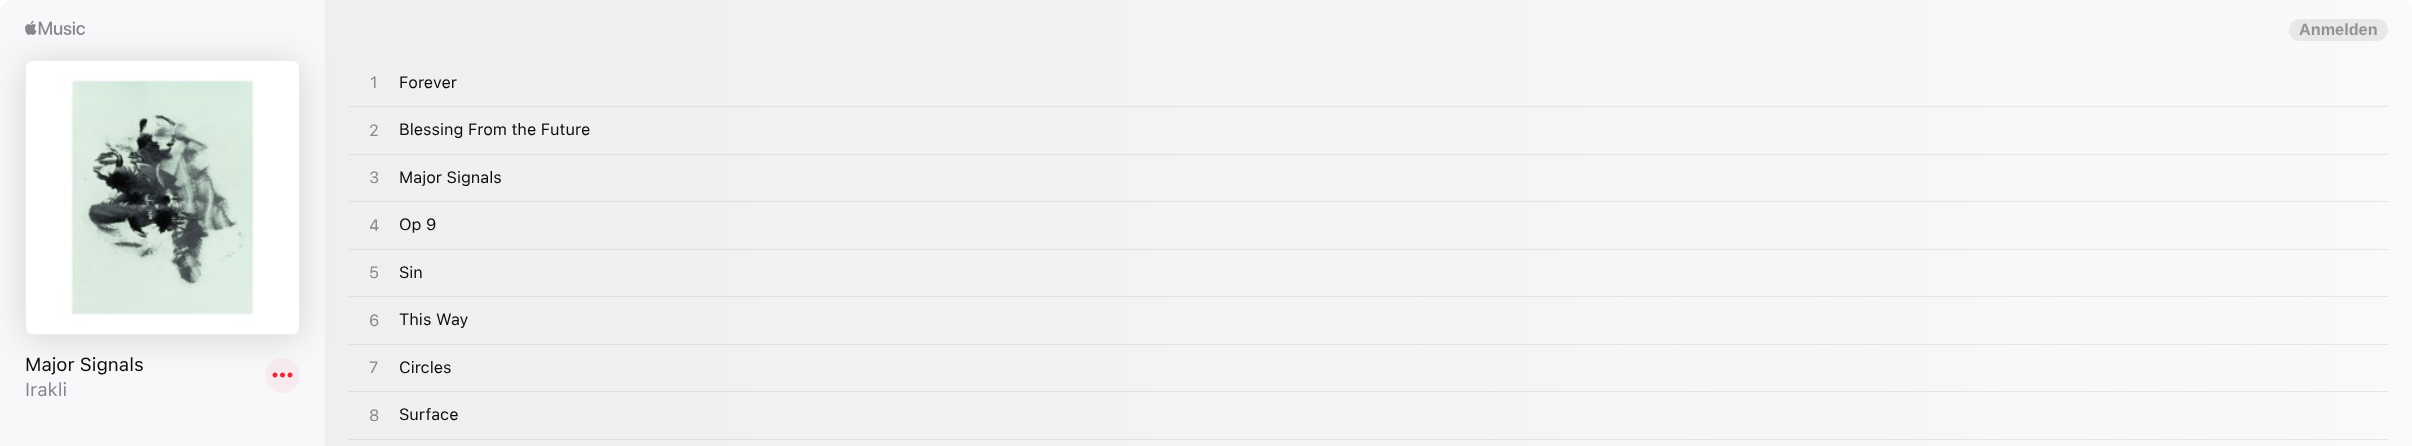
async function draw(canvas) {
	canvas.width = 2412;
	canvas.height = 446;
	const c = canvas.getContext('2d');
	c.miterLimit = 4;
	c.fontKerning = 'normal';
	async function loadImage(src) {
		const img = new Image();
		img.src = src;
		await img.decode();
		return img;
	}
	let gradient;

	c.fillStyle = '#fff';
	c.fillRect(0, 0, 2412, 446);
	c.fillStyle = '#f8f8fa';
	c.beginPath();
	c.roundRect(0, 0, 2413, 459, 13);
	c.fill();
	gradient = c.createLinearGradient(325, 281, 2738, 281);
	gradient.addColorStop(0, '#efefef');
	gradient.addColorStop(1, '#fbfbfc');
	c.fillStyle = gradient;
	c.beginPath();
	c.moveTo(325, 0);
	c.lineTo(2400, 0);
	c.bezierCurveTo(2407, 0, 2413, 6, 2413, 13);
	c.lineTo(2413, 446);
	c.bezierCurveTo(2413, 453, 2407, 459, 2400, 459);
	c.lineTo(325, 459);
	c.closePath();
	c.fill();
	gradient = c.createLinearGradient(325, 281, 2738, 281);
	gradient.addColorStop(0, '#dedede');
	gradient.addColorStop(1, '#e9e9ea');
	c.fillStyle = gradient;
	c.fillRect(349, 439, 2040, 1);
	c.fillRect(349, 391, 2040, 1);
	c.fillRect(349, 344, 2040, 1);
	c.fillRect(349, 296, 2040, 1);
	c.fillRect(349, 249, 2040, 1);
	c.fillRect(349, 201, 2040, 1);
	c.fillRect(349, 154, 2040, 1);
	c.fillRect(349, 106, 2040, 1);
	c.drawImage(await loadImage('img2.png'), 25, 20, 60, 15);
	c.fillStyle = '#f8ebef';
	c.beginPath();
	c.arc(282.5, 375.5, 17.5, 0, 2 * Math.PI);
	c.fill();
	c.drawImage(await loadImage('img3.png'), 272, 372, 21, 6);
	c.fillStyle = '#00000024';
	c.filter = 'blur(17.5px)';
	c.beginPath();
	c.roundRect(25, 63, 275, 275, 8);
	c.fill();
	c.filter = 'none';
	c.drawImage(await loadImage('img1.png'), 25, 60, 275, 275);
	c.beginPath();
	c.roundRect(25.5, 60.5, 274, 274, 7.5);
	c.strokeStyle = '#00000014';
	c.stroke();
	c.fillStyle = '#e8e8e9';
	c.beginPath();
	c.roundRect(2289, 19, 99, 22, 11);
	c.fill();
	c.font = 'bold 16.25px Liberation Sans';
	c.fillStyle = '#929296';
	c.fillText('Anmelden', 2299, 35);
	c.font = '18.75px SF';
	c.fillStyle = '#0c0c0d';
	c.fillText('Major Signals', 25, 371);
	c.fillStyle = '#87878c';
	c.fillText('Irakli', 25, 396);
	c.font = '16.25px SF';
	c.fillText('1', 370, 88);
	c.fillStyle = '#0c0c0d';
	c.fillText('Forever', 399, 88);
	c.fillStyle = '#87878c';
	c.fillText('2', 369, 136);
	c.fillStyle = '#0c0c0d';
	c.fillText('Blessing From the Future', 399, 135);
	c.fillStyle = '#87878c';
	c.fillText('3', 369, 183);
	c.fillStyle = '#0c0c0d';
	c.fillText('Major Signals', 399, 183);
	c.fillStyle = '#87878c';
	c.fillText('4', 369, 231);
	c.fillStyle = '#0c0c0d';
	c.fillText('Op 9', 399, 230);
	c.fillStyle = '#87878c';
	c.fillText('5', 369, 278);
	c.fillStyle = '#0c0c0d';
	c.fillText('Sin', 399, 278);
	c.fillStyle = '#87878c';
	c.fillText('6', 369, 326);
	c.fillStyle = '#0c0c0d';
	c.fillText('This Way', 399, 325);
	c.fillStyle = '#87878c';
	c.fillText('7', 369, 373);
	c.fillStyle = '#0c0c0d';
	c.fillText('Circles', 399, 373);
	c.fillStyle = '#87878c';
	c.fillText('8', 369, 421);
	c.fillStyle = '#0c0c0d';
	c.fillText('Surface', 399, 420);
}

draw(document.querySelector('canvas'));
